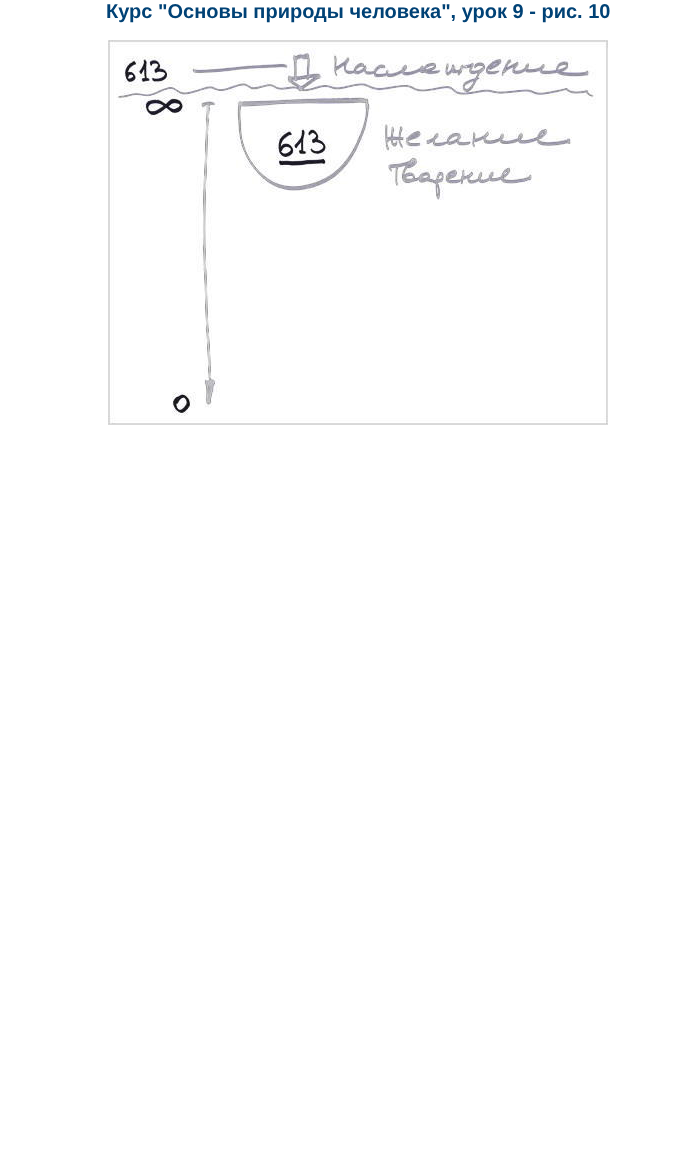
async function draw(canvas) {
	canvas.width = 696;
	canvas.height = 1175;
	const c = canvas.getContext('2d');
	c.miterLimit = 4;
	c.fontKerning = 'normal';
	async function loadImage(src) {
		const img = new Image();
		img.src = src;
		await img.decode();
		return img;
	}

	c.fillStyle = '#fff';
	c.fillRect(0, 0, 696, 1175);
	c.font = 'bold 20px Liberation Sans';
	c.fillStyle = '#004276';
	c.fillText('Курс "Основы природы человека", урок 9 - рис. 10', 106, 18);
	c.drawImage(await loadImage('img1.png'), 108, 40, 500, 385);
}

draw(document.querySelector('canvas'));
